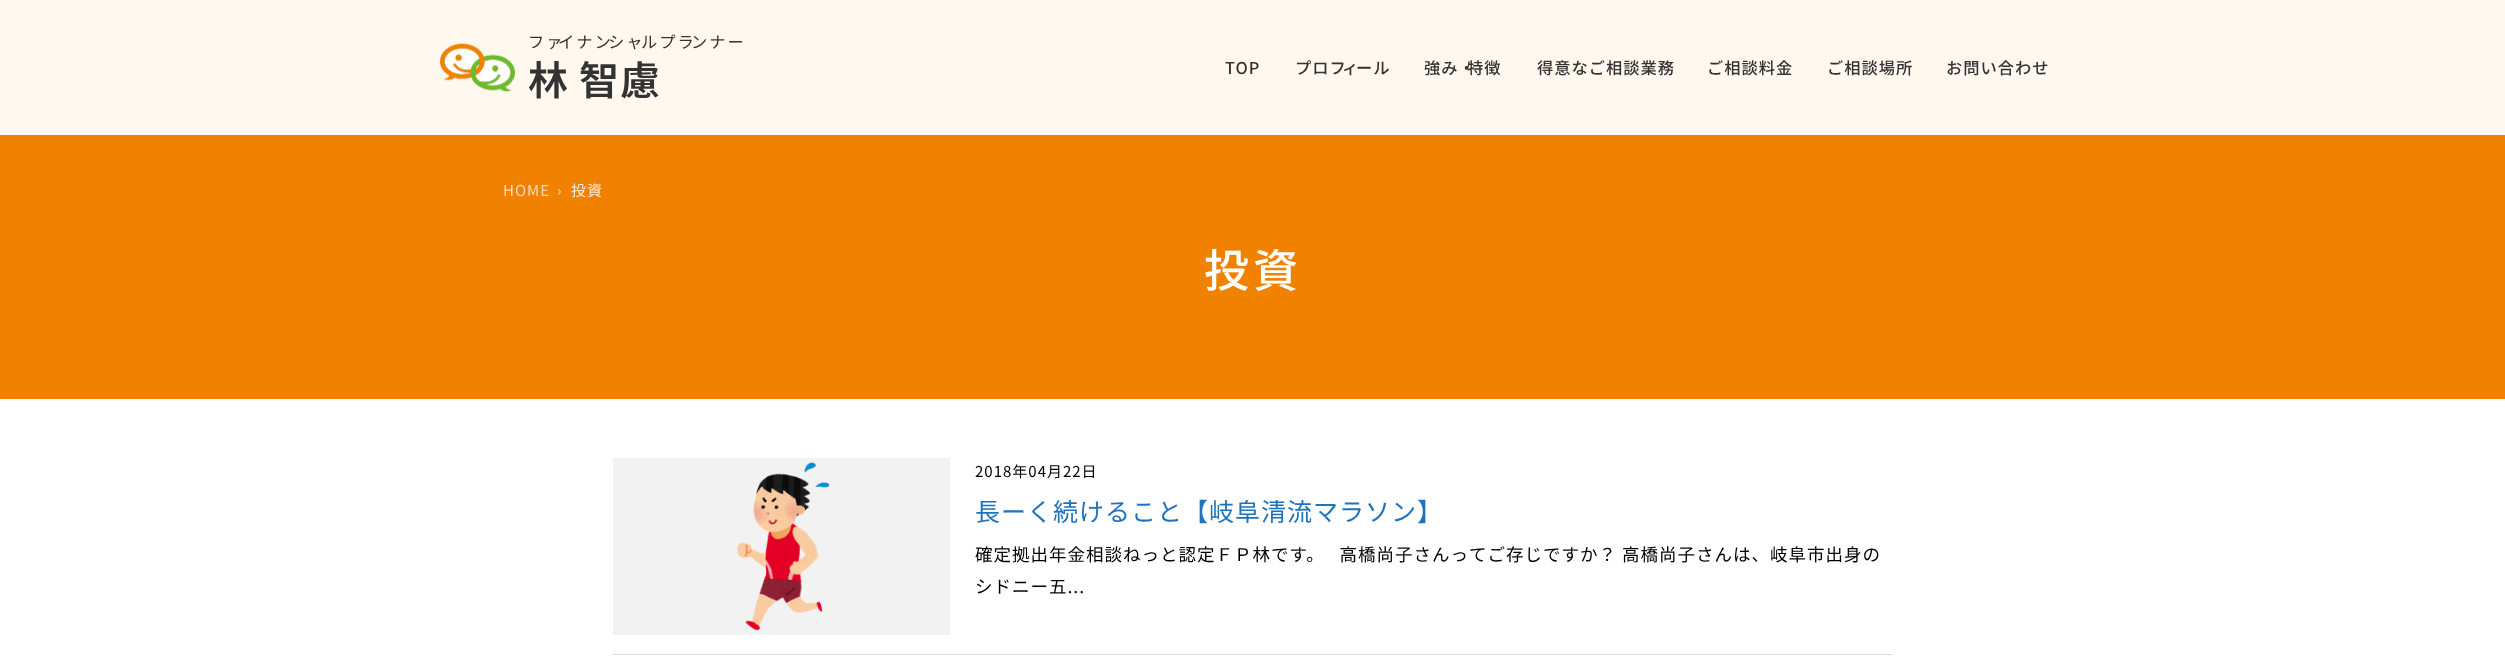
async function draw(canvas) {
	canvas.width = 2505;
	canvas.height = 661;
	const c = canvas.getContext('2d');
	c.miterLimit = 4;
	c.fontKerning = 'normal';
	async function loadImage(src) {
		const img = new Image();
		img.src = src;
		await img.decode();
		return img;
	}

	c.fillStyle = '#fff';
	c.fillRect(0, 0, 2505, 661);
	c.fillStyle = '#fff8ef';
	c.fillRect(0, 0, 2505, 135);
	c.drawImage(await loadImage('img1.png'), 440, 43, 75, 49);
	c.letterSpacing = '2px';
	c.font = '16.25px Noto Sans JP';
	c.fillStyle = '#333';
	c.fillText('ファ', 528, 48);
	c.fillText('イナン', 558, 48);
	c.fillText('シャ', 608, 48);
	c.fillText('ルプラ', 641, 48);
	c.fillText('ンナー', 691, 48);
	c.letterSpacing = '1px';
	c.font = '600 40px Noto Sans JP';
	c.fillText('林 智慮', 528, 95);
	c.font = '500 16.25px Noto Sans JP';
	for (const [text, x, y] of [
		['TOP', 1225, 74],
		['プロフ', 1295, 74],
		['ィ', 1342, 74],
		['ール', 1356, 74],
		['強み・', 1424, 74],
		['特徴', 1467, 74],
		['得意なご相談業務', 1537, 74],
		['ご相談料金', 1707, 74],
		['ご相談場所', 1827, 74],
		['お問い合わせ', 1946, 74],
	]) {
		c.fillText(text, x, y);
	}
	c.fillStyle = '#f08200';
	c.fillRect(0, 135, 2505, 264);
	c.font = '15px Noto Sans JP';
	c.fillStyle = '#fbdcb8';
	c.fillText('HOME', 503, 196);
	c.fillText('›', 557, 196);
	c.fillStyle = '#fdecd9';
	c.fillText('投資', 571, 196);
	c.letterSpacing = '4px';
	c.font = '500 45px Noto Sans JP';
	c.fillStyle = '#fff';
	c.fillText('投資', 1204, 287);
	c.fillStyle = '#dadada';
	c.fillRect(613, 654, 1280, 1);
	c.fillStyle = '#f2f2f2';
	c.fillRect(613, 458, 337, 177);
	c.drawImage(await loadImage('img2.png'), 736, 462, 94, 169);
	c.letterSpacing = '1px';
	c.font = '15px Noto Sans JP';
	c.fillStyle = '#000';
	c.fillText('2018年04月22日', 975, 477);
	c.font = '25px Noto Sans JP';
	c.fillStyle = '#1e73be';
	c.fillText('長ーく続けること【岐阜清流マラソン】', 975, 521);
	c.font = '17.5px Noto Sans JP';
	c.fillStyle = '#000';
	c.fillText('確定拠出年金相談ねっと認定ＦＰ林です。   高橋尚子さんってご存じですか？ 高橋尚子さんは、岐阜市出身の', 975, 561);
	c.fillText('シドニー五...', 975, 593);
}

draw(document.querySelector('canvas'));
